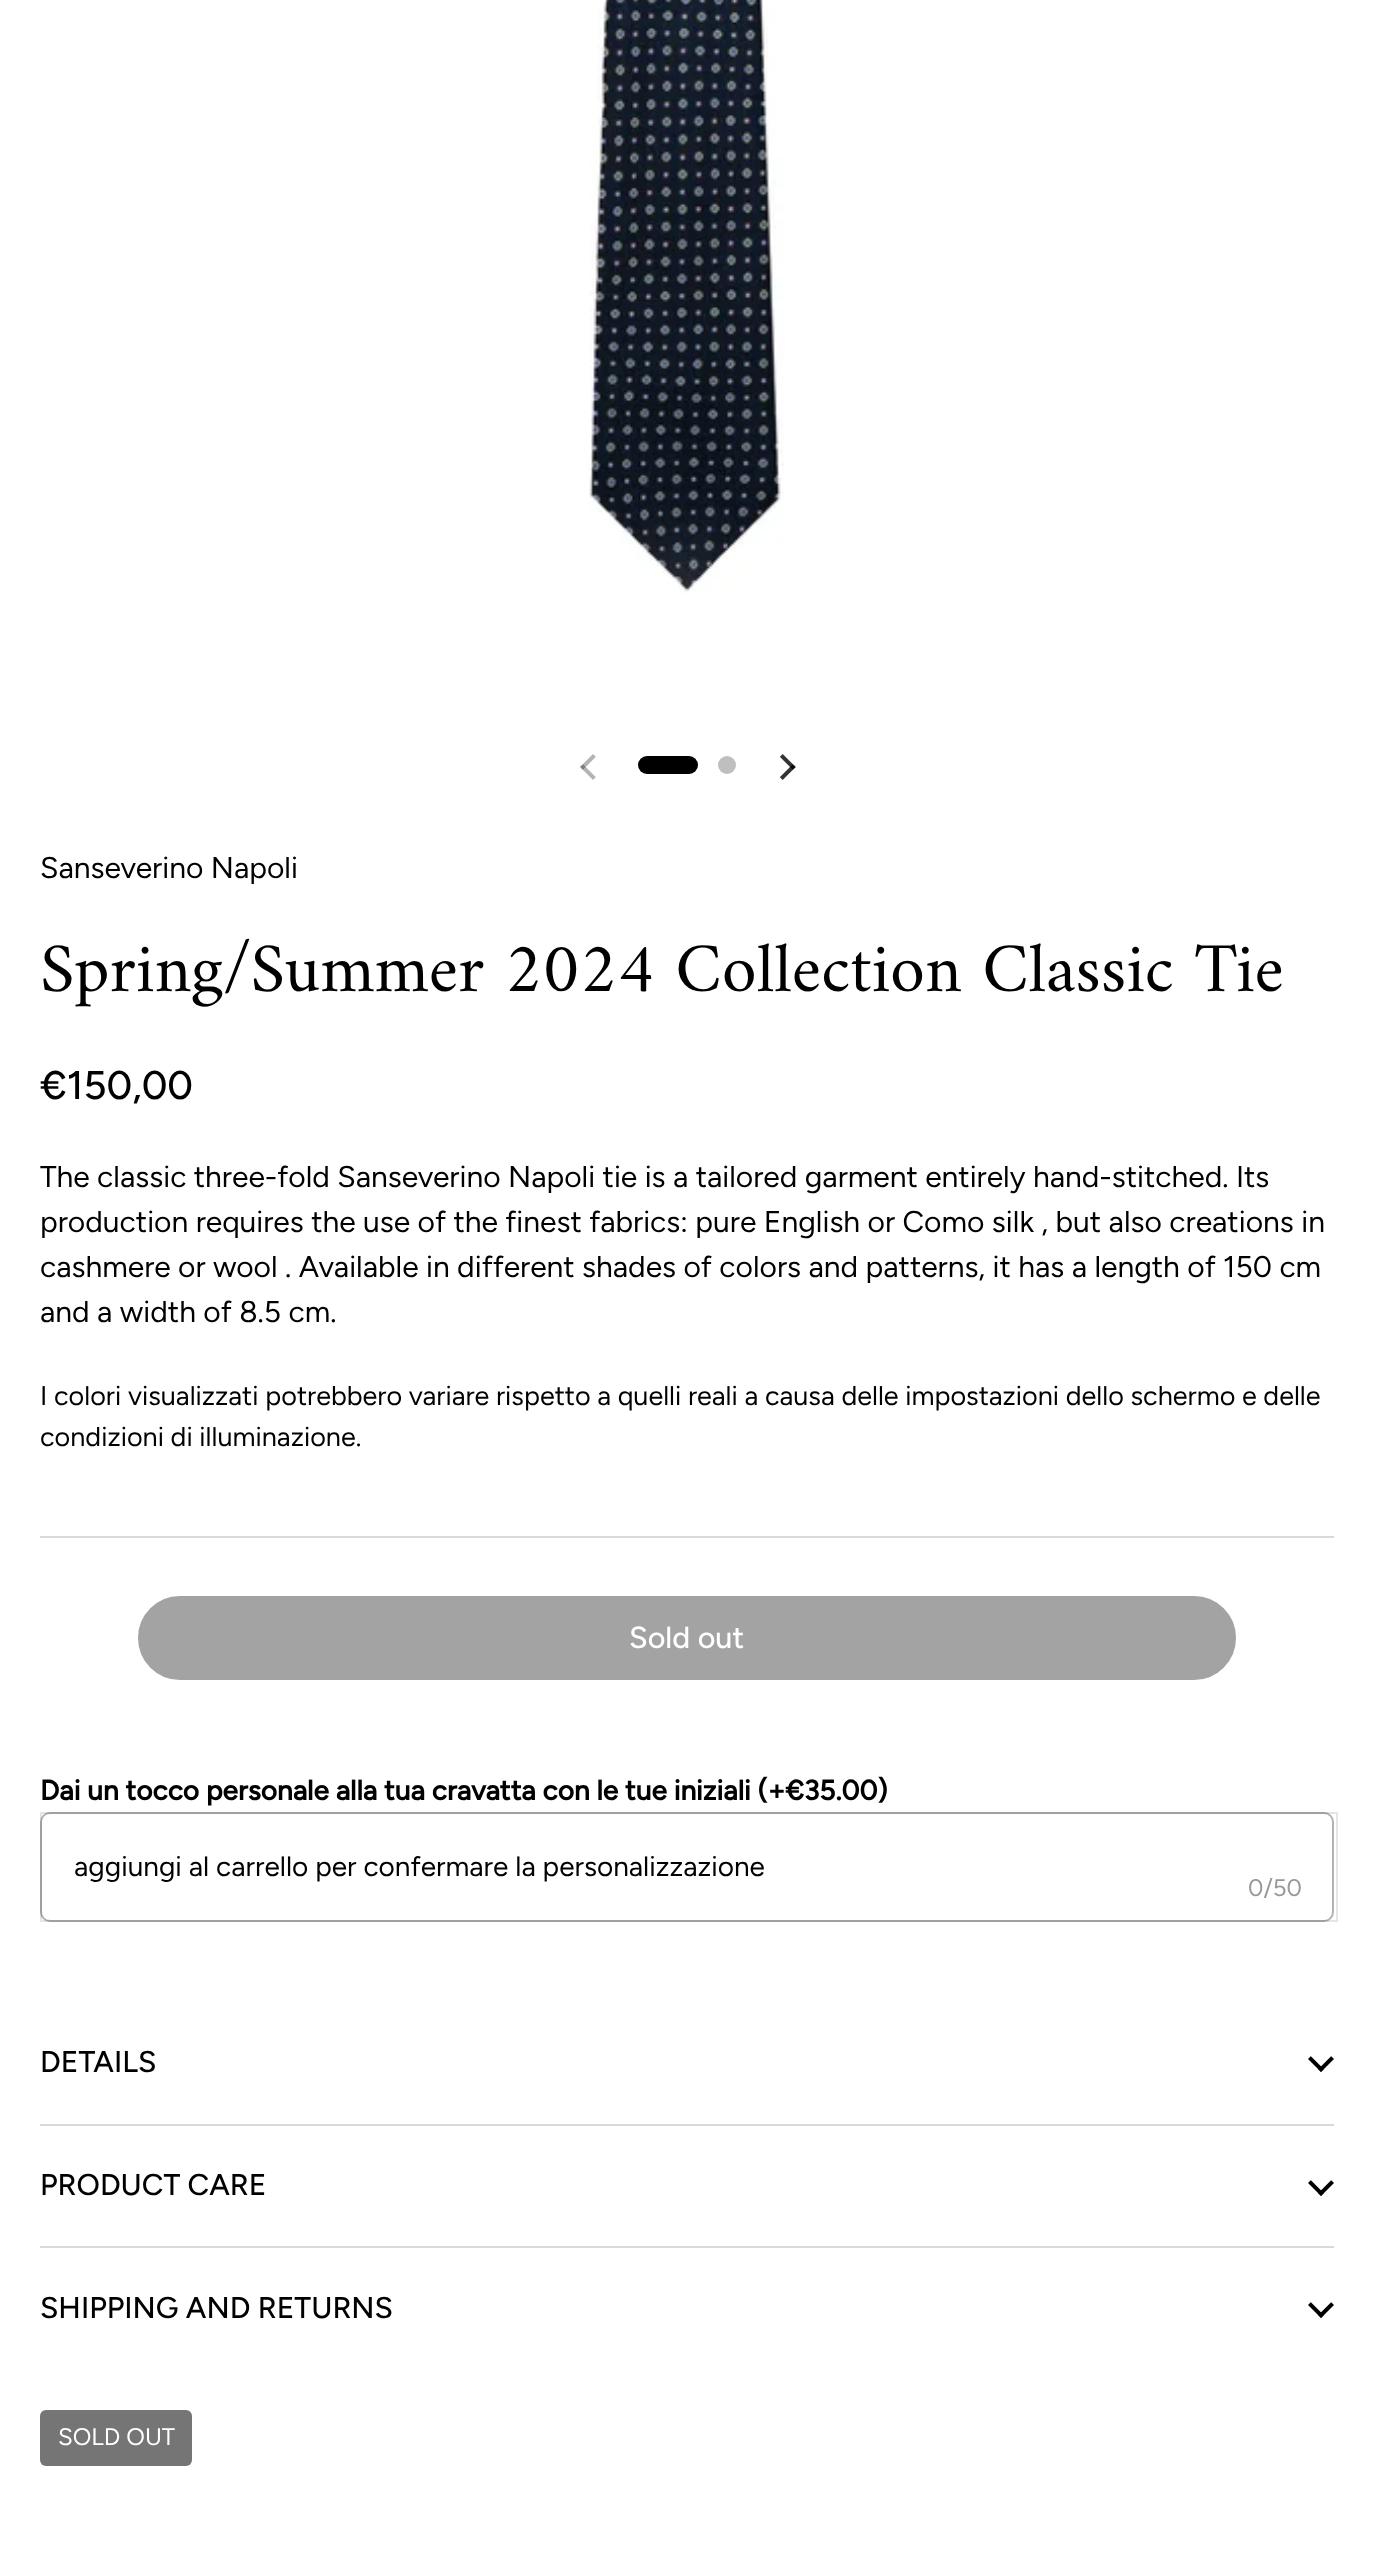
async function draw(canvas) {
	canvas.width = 1373;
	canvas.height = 2573;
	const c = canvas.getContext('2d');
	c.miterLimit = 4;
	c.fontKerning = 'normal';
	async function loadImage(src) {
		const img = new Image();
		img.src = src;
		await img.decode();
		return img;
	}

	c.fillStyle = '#fff';
	c.fillRect(0, 0, 1373, 2573);
	c.drawImage(await loadImage('img1.png'), 589, 0, 195, 593);
	c.drawImage(await loadImage('img2.png'), 580, 754, 16, 26);
	c.fillStyle = '#000';
	c.beginPath();
	c.roundRect(638, 756, 60, 18, 9);
	c.fill();
	c.fillStyle = '#bfbfbf';
	c.beginPath();
	c.arc(727, 765, 9, 0, 2 * Math.PI);
	c.fill();
	c.drawImage(await loadImage('img3.png'), 779, 754, 17, 26);
	c.font = '30px Figtree';
	c.fillStyle = '#000';
	c.fillText('Sanseverino Napoli', 40, 878);
	c.font = '70.4px Amiri';
	c.fillText('Spring/Summer 2024 Collection Classic Tie', 40, 991);
	c.font = '500 40px Figtree';
	c.fillText('€150,00', 40, 1099);
	c.font = '30px Figtree';
	for (const [text, x, y] of [
		['The classic three-fold Sanseverino Napoli tie is a tailored garment entirely hand-stitched. Its', 40, 1187],
		['production requires the use of the finest fabrics: pure English or Como silk , but also creations in', 40, 1232],
		['cashmere or wool . Available in different shades of colors and patterns, it has a length of 150 cm', 40, 1277],
		['and a width of 8.5 cm.', 40, 1322],
	]) {
		c.fillText(text, x, y);
	}
	c.font = '27px Figtree';
	c.fillText('I colori visualizzati potrebbero variare rispetto a quelli reali a causa delle impostazioni dello schermo e delle', 40, 1405);
	c.fillText('condizioni di illuminazione.', 40, 1446);
	c.fillStyle = '#d9d9d9';
	c.fillRect(40, 1536, 1294, 2);
	c.fillStyle = '#a3a3a3';
	c.beginPath();
	c.roundRect(139, 1597, 1096, 82, 41);
	c.fill();
	c.strokeStyle = '#a3a3a3';
	c.lineWidth = 2;
	c.stroke();
	c.font = '500 30.5px Figtree';
	c.fillStyle = '#fff';
	c.fillText('Sold out', 629, 1648);
	c.font = 'bold 28px Figtree';
	c.fillStyle = '#000';
	c.fillText('Dai un tocco personale alla tua cravatta con le tue iniziali (+€35.00)', 40, 1800);
	c.beginPath();
	c.roundRect(41, 1813, 1292, 108, 9);
	c.strokeStyle = '#b3b3b3';
	c.stroke();
	c.strokeStyle = '#0000001a';
	c.strokeRect(41, 1813, 1296, 108);
	c.font = '28px Figtree';
	c.fillText('aggiungi al carrello per confermare la personalizzazione', 74, 1876);
	c.font = '24px Figtree';
	c.fillStyle = '#999';
	c.fillText('0/50', 1248, 1896);
	c.font = '500 30px Figtree';
	c.fillStyle = '#000';
	c.fillText('DETAILS', 40, 2072);
	c.drawImage(await loadImage('img4.png'), 1308, 2056, 26, 16);
	c.fillStyle = '#d9d9d9';
	c.fillRect(40, 2124, 1294, 2);
	c.fillStyle = '#000';
	c.fillText('PRODUCT CARE', 40, 2195);
	c.drawImage(await loadImage('img4.png'), 1308, 2180, 26, 16);
	c.fillStyle = '#d9d9d9';
	c.fillRect(40, 2246, 1294, 2);
	c.fillStyle = '#000';
	c.fillText('SHIPPING AND RETURNS', 40, 2318);
	c.drawImage(await loadImage('img4.png'), 1308, 2302, 26, 16);
	c.fillStyle = '#757575';
	c.beginPath();
	c.roundRect(40, 2410, 152, 56, 6);
	c.fill();
	c.font = '24px Figtree';
	c.fillStyle = '#fff';
	c.fillText('SOLD OUT', 58, 2445);
}

draw(document.querySelector('canvas'));
